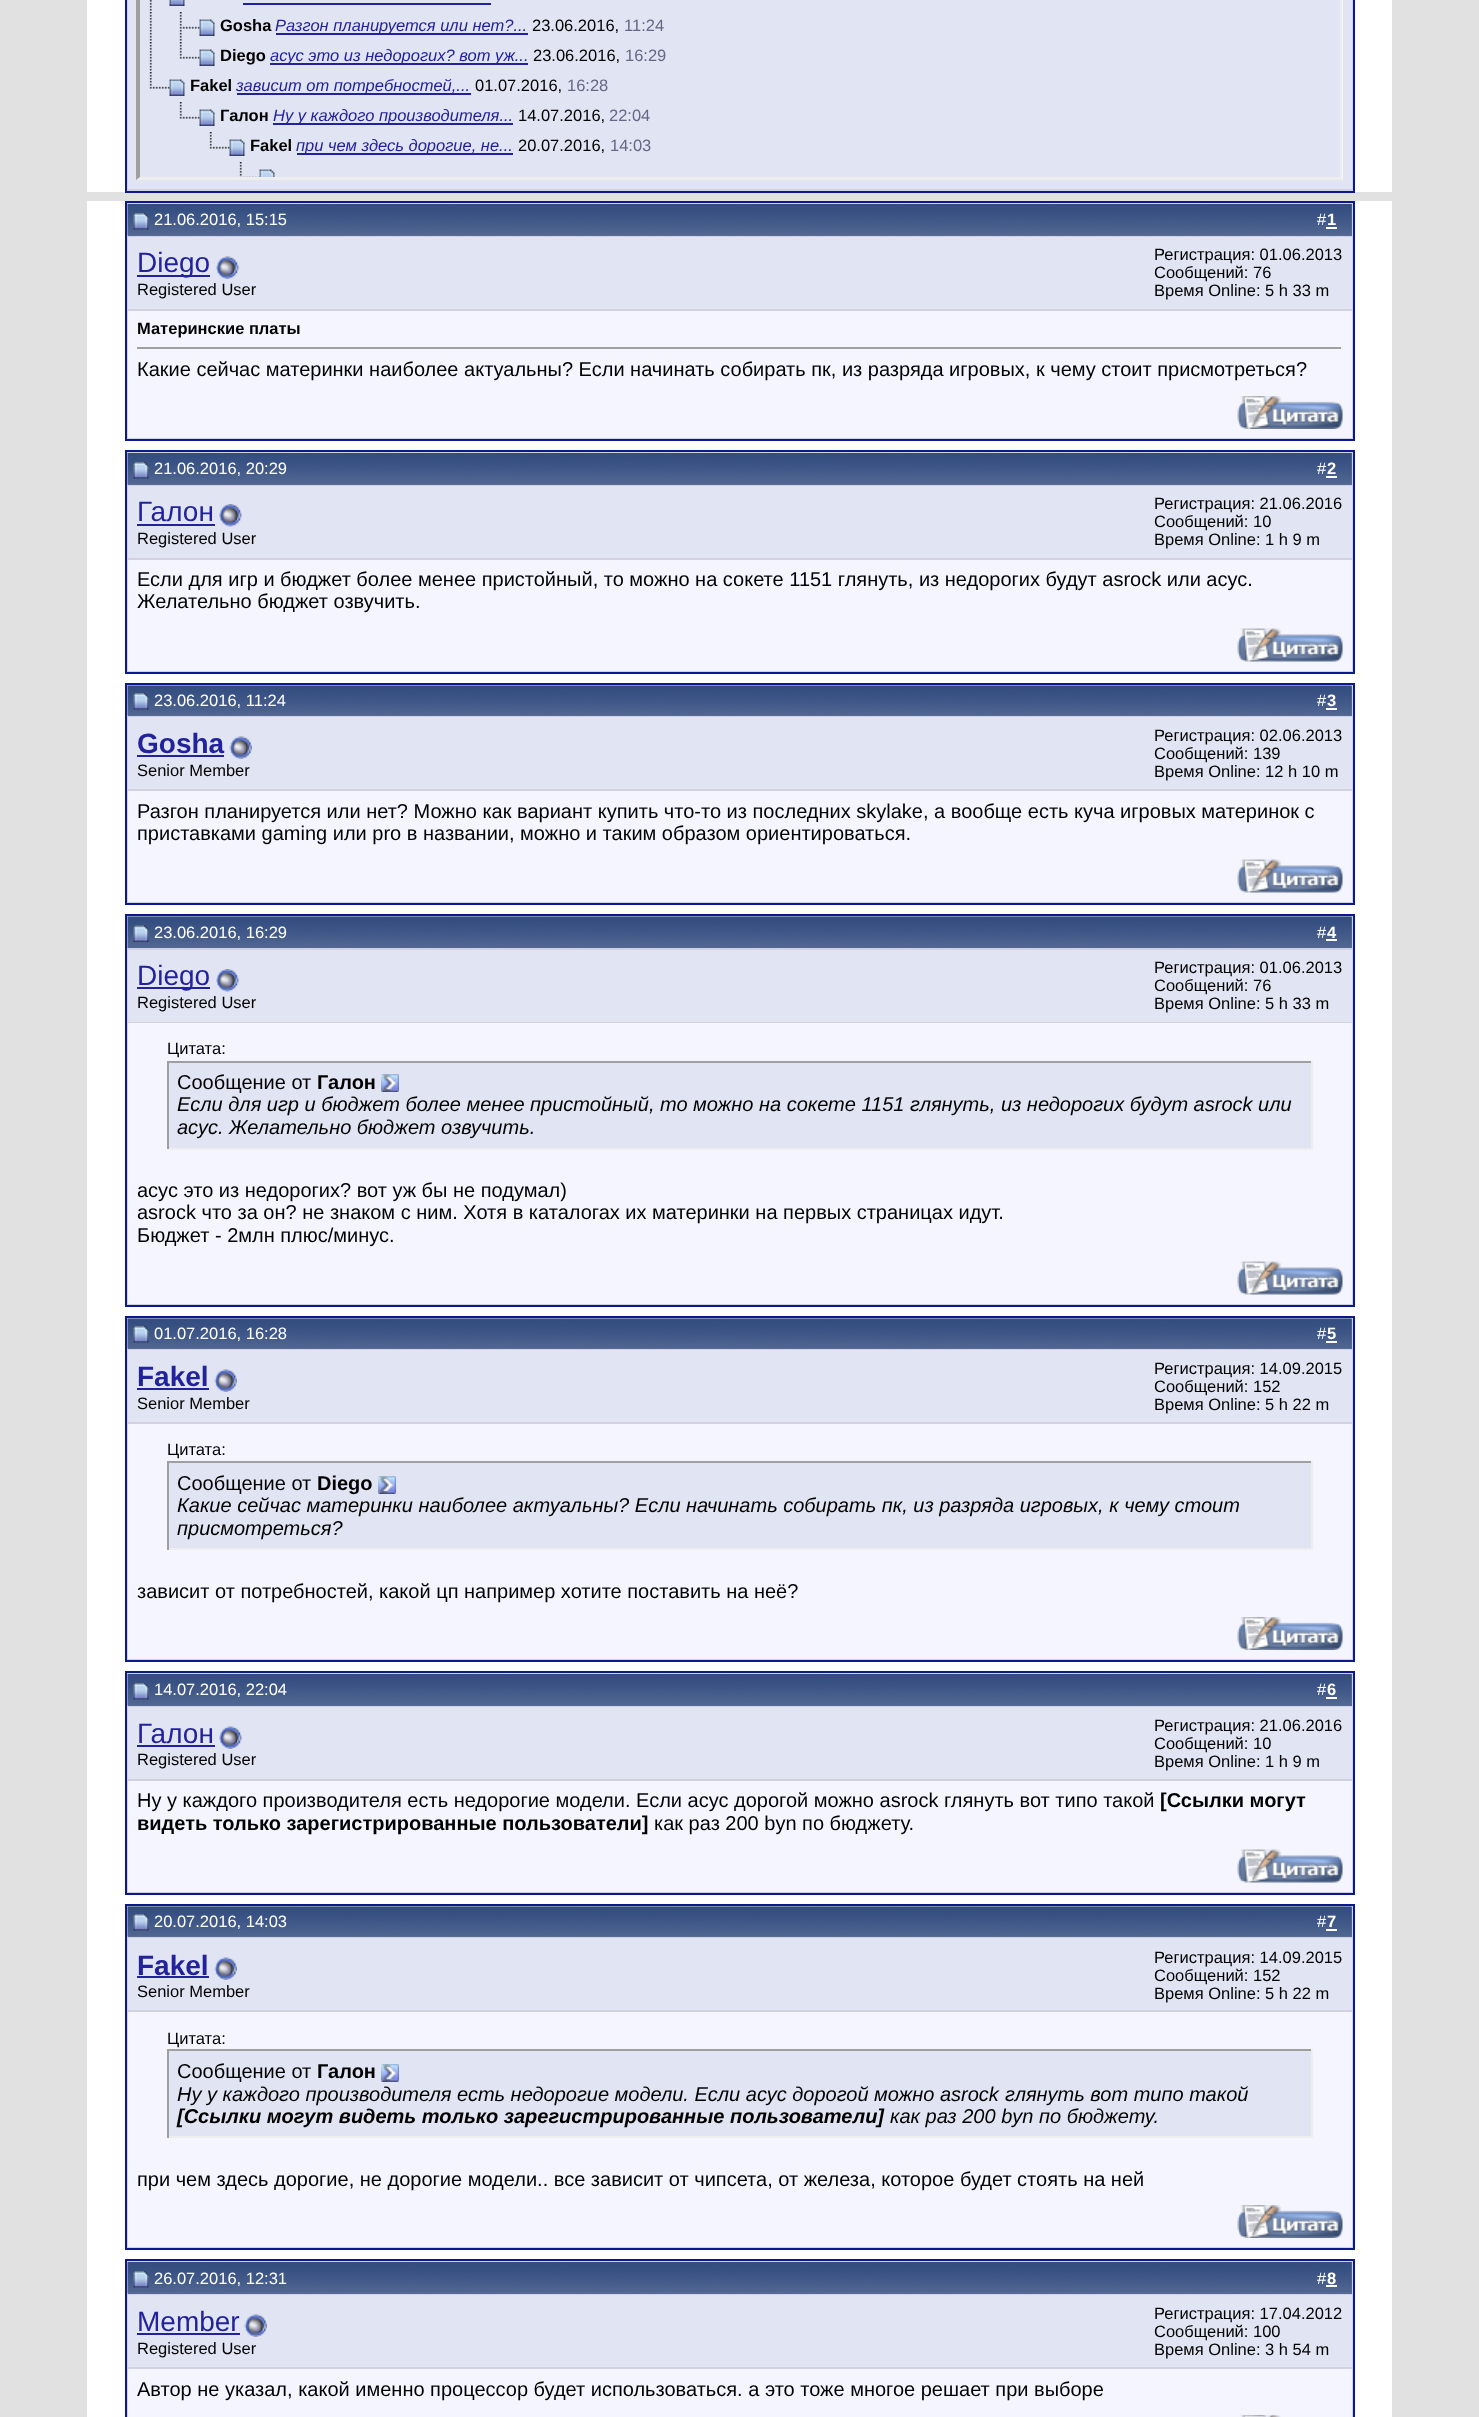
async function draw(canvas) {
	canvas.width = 1479;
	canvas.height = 2417;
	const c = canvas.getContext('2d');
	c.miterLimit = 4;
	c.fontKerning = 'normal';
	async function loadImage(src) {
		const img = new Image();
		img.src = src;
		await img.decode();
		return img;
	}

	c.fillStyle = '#e1e1e2';
	c.fillRect(0, 0, 1479, 2417);
	for (const [x, y, w, h, color] of [
		[87, 0, 1305, 192, '#fff'],
		[127, 0, 1226, 191, '#d1d1e1'],
		[1353, 0, 2, 192, '#0b198c'],
		[125, 191, 1230, 2, '#0b198c'],
		[125, 0, 2, 192, '#0b198c'],
		[128, 0, 1224, 189, '#e1e4f2'],
		[137, 0, 1206, 180, '#f5f5ff'],
	]) {
		c.fillStyle = color;
		c.fillRect(x, y, w, h);
	}
	c.fillStyle = '#eee';
	c.beginPath();
	c.moveTo(1342, -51);
	c.lineTo(1342, 180);
	c.lineTo(1340, 177);
	c.lineTo(1340, -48);
	c.closePath();
	c.fill();
	c.beginPath();
	c.moveTo(1342, 180);
	c.lineTo(136, 180);
	c.lineTo(140, 177);
	c.lineTo(1340, 177);
	c.closePath();
	c.fill();
	c.fillStyle = '#9f9f9f';
	c.beginPath();
	c.moveTo(136, 180);
	c.lineTo(136, -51);
	c.lineTo(140, -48);
	c.lineTo(140, 177);
	c.closePath();
	c.fill();
	c.fillStyle = '#e1e4f2';
	c.fillRect(140, 0, 1200, 177);
	c.drawImage(await loadImage('img1.png'), 149, 0, 3, 11);
	c.drawImage(await loadImage('img2.png'), 169, 0, 16, 6);
	c.fillStyle = '#22229c';
	c.fillRect(243, 3, 248, 2);
	c.drawImage(await loadImage('img3.png'), 149, 12, 3, 29);
	c.drawImage(await loadImage('img4.png'), 179, 12, 21, 29);
	c.drawImage(await loadImage('img5.png'), 199, 19, 16, 17);
	c.font = 'bold 16.5px Liberation Sans';
	c.fillStyle = '#000';
	c.fillText('Gosha', 220, 31);
	c.fillStyle = '#22229c';
	c.fillRect(276, 33, 252, 2);
	c.font = 'italic 16.5px Liberation Sans';
	c.fillText('Разгон планируется или нет?...', 275, 31);
	c.font = '16.5px Liberation Sans';
	c.fillStyle = '#000';
	c.fillText('23.06.2016,', 532, 31);
	c.fillStyle = '#666686';
	c.fillText('11:24', 624, 31);
	c.drawImage(await loadImage('img3.png'), 149, 42, 3, 29);
	c.drawImage(await loadImage('img6.png'), 179, 42, 21, 17);
	c.drawImage(await loadImage('img5.png'), 199, 49, 16, 17);
	c.font = 'bold 16.5px Liberation Sans';
	c.fillStyle = '#000';
	c.fillText('Diego', 220, 61);
	c.fillStyle = '#22229c';
	c.fillRect(270, 63, 258, 2);
	c.font = 'italic 16.5px Liberation Sans';
	c.fillText('асус это из недорогих? вот уж...', 270, 61);
	c.font = '16.5px Liberation Sans';
	c.fillStyle = '#000';
	c.fillText('23.06.2016,', 533, 61);
	c.fillStyle = '#666686';
	c.fillText('16:29', 625, 61);
	c.drawImage(await loadImage('img6.png'), 149, 72, 21, 17);
	c.drawImage(await loadImage('img5.png'), 169, 79, 16, 17);
	c.font = 'bold 16.5px Liberation Sans';
	c.fillStyle = '#000';
	c.fillText('Fakel', 190, 91);
	c.fillStyle = '#22229c';
	c.fillRect(237, 93, 234, 2);
	c.font = 'italic 16.5px Liberation Sans';
	c.fillText('зависит от потребностей,...', 236, 91);
	c.font = '16.5px Liberation Sans';
	c.fillStyle = '#000';
	c.fillText('01.07.2016,', 475, 91);
	c.fillStyle = '#666686';
	c.fillText('16:28', 567, 91);
	c.drawImage(await loadImage('img6.png'), 179, 102, 21, 17);
	c.drawImage(await loadImage('img5.png'), 199, 109, 16, 17);
	c.font = 'bold 16.5px Liberation Sans';
	c.fillStyle = '#000';
	c.fillText('Галон', 220, 121);
	c.fillStyle = '#22229c';
	c.fillRect(273, 123, 240, 2);
	c.font = 'italic 16.5px Liberation Sans';
	c.fillText('Ну у каждого производителя...', 273, 121);
	c.font = '16.5px Liberation Sans';
	c.fillStyle = '#000';
	c.fillText('14.07.2016,', 518, 121);
	c.fillStyle = '#666686';
	c.fillText('22:04', 609, 121);
	c.drawImage(await loadImage('img6.png'), 209, 132, 21, 17);
	c.drawImage(await loadImage('img5.png'), 229, 139, 16, 17);
	c.font = 'bold 16.5px Liberation Sans';
	c.fillStyle = '#000';
	c.fillText('Fakel', 250, 151);
	c.fillStyle = '#22229c';
	c.fillRect(297, 153, 216, 2);
	c.font = 'italic 16.5px Liberation Sans';
	c.fillText('при чем здесь дорогие, не...', 296, 151);
	c.font = '16.5px Liberation Sans';
	c.fillStyle = '#000';
	c.fillText('20.07.2016,', 518, 151);
	c.fillStyle = '#666686';
	c.fillText('14:03', 610, 151);
	c.drawImage(await loadImage('img7.png'), 239, 162, 21, 15);
	c.drawImage(await loadImage('img8.png'), 259, 169, 16, 8);
	c.fillStyle = '#fff';
	c.fillRect(87, 201, 1305, 2216);
	c.fillStyle = '#d1d1e1';
	c.beginPath();
	c.rect(126, 202, 1228, 238);
	c.fill();
	c.strokeStyle = '#0b198c';
	c.lineWidth = 2;
	c.stroke();
	c.fillStyle = '#5c7099';
	c.fillRect(128, 204, 1224, 32);
	c.drawImage(await loadImage('img9.png'), 127, 204, 1225, 32);
	c.drawImage(await loadImage('img10.png'), 133, 213, 16, 17);
	c.fillStyle = '#fff';
	c.fillText('21.06.2016, 15:15', 154, 225);
	c.fillText('#', 1317, 225);
	c.font = 'bold 16.5px Liberation Sans';
	c.fillText('1', 1327, 225);
	for (const [x, y, w, h, color] of [
		[1326, 227, 11, 2, '#fff'],
		[128, 237, 1224, 72, '#e1e4f2'],
		[137, 275, 73, 2, '#22229c'],
	]) {
		c.fillStyle = color;
		c.fillRect(x, y, w, h);
	}
	c.font = '28px Liberation Sans';
	c.fillText('Diego', 137, 272);
	c.drawImage(await loadImage('img11.png'), 216, 256, 23, 23);
	c.font = '16.5px Liberation Sans';
	c.fillStyle = '#000';
	for (const [text, x, y] of [
		['Registered User', 137, 295],
		['Регистрация: 01.06.2013', 1154, 260],
		['Сообщений: 76', 1154, 278],
		['Время Online: 5 h 33 m', 1154, 296],
	]) {
		c.fillText(text, x, y);
	}
	c.fillStyle = '#f5f5ff';
	c.fillRect(128, 311, 1224, 127);
	c.font = 'bold 16.5px Liberation Sans';
	c.fillStyle = '#000';
	c.fillText('Материнские платы', 137, 334);
	c.fillStyle = '#9f9f9f';
	c.fillRect(137, 347, 1206, 2);
	c.fillStyle = '#eee';
	c.fillRect(1341, 347, 2, 2);
	c.font = '20px Liberation Sans';
	c.fillStyle = '#000';
	c.fillText('Какие сейчас материнки наиболее актуальны? Если начинать собирать пк, из разряда игровых, к чему стоит присмотреться?', 137, 376);
	c.drawImage(await loadImage('img12.png'), 1237, 396, 106, 33);
	c.fillStyle = '#d1d1e1';
	c.beginPath();
	c.rect(126, 451, 1228, 222);
	c.fill();
	c.stroke();
	c.fillStyle = '#5c7099';
	c.fillRect(128, 453, 1224, 32);
	c.drawImage(await loadImage('img13.png'), 127, 453, 1225, 32);
	c.drawImage(await loadImage('img14.png'), 133, 462, 16, 17);
	c.font = '16.5px Liberation Sans';
	c.fillStyle = '#fff';
	c.fillText('21.06.2016, 20:29', 154, 474);
	c.fillText('#', 1317, 474);
	c.font = 'bold 16.5px Liberation Sans';
	c.fillText('2', 1327, 474);
	c.fillRect(1326, 476, 11, 2);
	c.fillStyle = '#e1e4f2';
	c.fillRect(128, 486, 1224, 72);
	c.font = '28px Liberation Sans';
	c.fillStyle = '#22229c';
	c.fillText('Галон', 137, 521);
	c.fillRect(137, 524, 78, 2);
	c.drawImage(await loadImage('img15.png'), 219, 504, 23, 23);
	c.font = '16.5px Liberation Sans';
	c.fillStyle = '#000';
	for (const [text, x, y] of [
		['Registered User', 137, 544],
		['Регистрация: 21.06.2016', 1154, 509],
		['Сообщений: 10', 1154, 527],
		['Время Online: 1 h 9 m', 1154, 545],
	]) {
		c.fillText(text, x, y);
	}
	c.fillStyle = '#f5f5ff';
	c.fillRect(128, 560, 1224, 111);
	c.font = '20px Liberation Sans';
	c.fillStyle = '#000';
	c.fillText('Если для игр и бюджет более менее пристойный, то можно на сокете 1151 глянуть, из недорогих будут asrock или асус.', 137, 586);
	c.fillText('Желательно бюджет озвучить.', 137, 608);
	c.drawImage(await loadImage('img16.png'), 1237, 628, 106, 34);
	c.fillStyle = '#d1d1e1';
	c.beginPath();
	c.rect(126, 684, 1228, 220);
	c.fill();
	c.stroke();
	c.fillStyle = '#5c7099';
	c.fillRect(128, 686, 1224, 30);
	c.drawImage(await loadImage('img17.png'), 127, 685, 1225, 31);
	c.drawImage(await loadImage('img18.png'), 133, 693, 16, 17);
	c.font = '16.5px Liberation Sans';
	c.fillStyle = '#fff';
	c.fillText('23.06.2016, 11:24', 154, 706);
	c.fillText('#', 1317, 706);
	c.font = 'bold 16.5px Liberation Sans';
	c.fillText('3', 1327, 706);
	c.fillRect(1326, 708, 11, 2);
	c.fillStyle = '#e1e4f2';
	c.fillRect(128, 717, 1224, 72);
	c.font = 'bold 28px Liberation Sans';
	c.fillStyle = '#22229c';
	c.fillText('Gosha', 137, 753);
	c.fillRect(137, 755, 87, 2);
	c.drawImage(await loadImage('img19.png'), 229, 736, 23, 23);
	c.font = '16.5px Liberation Sans';
	c.fillStyle = '#000';
	for (const [text, x, y] of [
		['Senior Member', 137, 776],
		['Регистрация: 02.06.2013', 1154, 741],
		['Сообщений: 139', 1154, 759],
		['Время Online: 12 h 10 m', 1154, 777],
	]) {
		c.fillText(text, x, y);
	}
	c.fillStyle = '#f5f5ff';
	c.fillRect(128, 791, 1224, 111);
	c.font = '20px Liberation Sans';
	c.fillStyle = '#000';
	c.fillText('Разгон планируется или нет? Можно как вариант купить что-то из последних skylake, а вообще есть куча игровых материнок с', 137, 818);
	c.fillText('приставками gaming или pro в названии, можно и таким образом ориентироваться.', 137, 840);
	c.drawImage(await loadImage('img16.png'), 1237, 859, 106, 34);
	c.fillStyle = '#d1d1e1';
	c.beginPath();
	c.rect(126, 915, 1228, 391);
	c.fill();
	c.stroke();
	c.fillStyle = '#5c7099';
	c.fillRect(1351, 917, 1, 31);
	c.drawImage(await loadImage('img20.png'), 127, 916, 1225, 32);
	c.drawImage(await loadImage('img21.png'), 133, 925, 16, 17);
	c.font = '16.5px Liberation Sans';
	c.fillStyle = '#fff';
	c.fillText('23.06.2016, 16:29', 154, 938);
	c.fillText('#', 1317, 938);
	c.font = 'bold 16.5px Liberation Sans';
	c.fillText('4', 1327, 938);
	for (const [x, y, w, h, color] of [
		[1326, 939, 11, 2, '#fff'],
		[128, 950, 1224, 72, '#e1e4f2'],
		[137, 987, 73, 2, '#22229c'],
	]) {
		c.fillStyle = color;
		c.fillRect(x, y, w, h);
	}
	c.font = '28px Liberation Sans';
	c.fillText('Diego', 137, 985);
	c.drawImage(await loadImage('img15.png'), 216, 969, 23, 23);
	c.font = '16.5px Liberation Sans';
	c.fillStyle = '#000';
	for (const [text, x, y] of [
		['Registered User', 137, 1008],
		['Регистрация: 01.06.2013', 1154, 973],
		['Сообщений: 76', 1154, 991],
		['Время Online: 5 h 33 m', 1154, 1009],
	]) {
		c.fillText(text, x, y);
	}
	c.fillStyle = '#f5f5ff';
	c.fillRect(128, 1023, 1224, 281);
	c.fillStyle = '#000';
	c.fillText('Цитата:', 167, 1054);
	for (const [x, y, w, h, color] of [
		[169, 1063, 1142, 85, '#e1e4f2'],
		[167, 1061, 1146, 2, '#9f9f9f'],
		[1311, 1061, 2, 88, '#eee'],
		[167, 1148, 1146, 2, '#eee'],
		[167, 1061, 2, 88, '#9f9f9f'],
	]) {
		c.fillStyle = color;
		c.fillRect(x, y, w, h);
	}
	c.font = '20px Liberation Sans';
	c.fillStyle = '#000';
	c.fillText('Сообщение от', 177, 1089);
	c.font = 'bold 20px Liberation Sans';
	c.fillText('Галон', 317, 1089);
	c.drawImage(await loadImage('img22.png'), 381, 1074, 18, 18);
	c.font = 'italic 20px Liberation Sans';
	c.fillText('Если для игр и бюджет более менее пристойный, то можно на сокете 1151 глянуть, из недорогих будут asrock или', 177, 1111);
	c.fillText('асус. Желательно бюджет озвучить.', 177, 1134);
	c.font = '20px Liberation Sans';
	for (const [text, x, y] of [
		['асус это из недорогих? вот уж бы не подумал)', 137, 1197],
		['asrock что за он? не знаком с ним. Хотя в каталогах их материнки на первых страницах идут.', 137, 1219],
		['Бюджет - 2млн плюс/минус.', 137, 1242],
	]) {
		c.fillText(text, x, y);
	}
	c.drawImage(await loadImage('img16.png'), 1237, 1261, 106, 34);
	c.fillStyle = '#d1d1e1';
	c.beginPath();
	c.rect(126, 1317, 1228, 344);
	c.fill();
	c.stroke();
	c.fillStyle = '#5c7099';
	c.fillRect(128, 1319, 1224, 30);
	c.drawImage(await loadImage('img23.png'), 127, 1318, 1225, 31);
	c.drawImage(await loadImage('img24.png'), 133, 1326, 16, 17);
	c.font = '16.5px Liberation Sans';
	c.fillStyle = '#fff';
	c.fillText('01.07.2016, 16:28', 154, 1339);
	c.fillText('#', 1317, 1339);
	c.font = 'bold 16.5px Liberation Sans';
	c.fillText('5', 1327, 1339);
	c.fillRect(1326, 1341, 11, 2);
	c.fillStyle = '#e1e4f2';
	c.fillRect(128, 1350, 1224, 72);
	c.font = 'bold 28px Liberation Sans';
	c.fillStyle = '#22229c';
	c.fillText('Fakel', 137, 1386);
	c.fillRect(137, 1388, 72, 2);
	c.drawImage(await loadImage('img19.png'), 214, 1369, 23, 23);
	c.font = '16.5px Liberation Sans';
	c.fillStyle = '#000';
	for (const [text, x, y] of [
		['Senior Member', 137, 1409],
		['Регистрация: 14.09.2015', 1154, 1374],
		['Сообщений: 152', 1154, 1392],
		['Время Online: 5 h 22 m', 1154, 1410],
	]) {
		c.fillText(text, x, y);
	}
	c.fillStyle = '#f5f5ff';
	c.fillRect(128, 1424, 1224, 235);
	c.fillStyle = '#000';
	c.fillText('Цитата:', 167, 1455);
	for (const [x, y, w, h, color] of [
		[169, 1463, 1142, 85, '#e1e4f2'],
		[167, 1461, 1146, 2, '#9f9f9f'],
		[1311, 1461, 2, 89, '#eee'],
		[167, 1548, 1146, 2, '#eee'],
		[167, 1461, 2, 89, '#9f9f9f'],
	]) {
		c.fillStyle = color;
		c.fillRect(x, y, w, h);
	}
	c.font = '20px Liberation Sans';
	c.fillStyle = '#000';
	c.fillText('Сообщение от', 177, 1490);
	c.font = 'bold 20px Liberation Sans';
	c.fillText('Diego', 317, 1490);
	c.drawImage(await loadImage('img22.png'), 378, 1476, 18, 18);
	c.font = 'italic 20px Liberation Sans';
	c.fillText('Какие сейчас материнки наиболее актуальны? Если начинать собирать пк, из разряда игровых, к чему стоит', 177, 1512);
	c.fillText('присмотреться?', 177, 1535);
	c.font = '20px Liberation Sans';
	c.fillText('зависит от потребностей, какой цп например хотите поставить на неё?', 137, 1598);
	c.drawImage(await loadImage('img12.png'), 1237, 1617, 106, 33);
	c.fillStyle = '#d1d1e1';
	c.beginPath();
	c.rect(126, 1672, 1228, 222);
	c.fill();
	c.stroke();
	c.fillStyle = '#5c7099';
	c.fillRect(128, 1674, 1224, 32);
	c.drawImage(await loadImage('img25.png'), 127, 1674, 1225, 32);
	c.drawImage(await loadImage('img26.png'), 133, 1683, 16, 17);
	c.font = '16.5px Liberation Sans';
	c.fillStyle = '#fff';
	c.fillText('14.07.2016, 22:04', 154, 1695);
	c.fillText('#', 1317, 1695);
	c.font = 'bold 16.5px Liberation Sans';
	c.fillText('6', 1327, 1695);
	c.fillRect(1326, 1697, 11, 2);
	c.fillStyle = '#e1e4f2';
	c.fillRect(128, 1707, 1224, 72);
	c.font = '28px Liberation Sans';
	c.fillStyle = '#22229c';
	c.fillText('Галон', 137, 1743);
	c.fillRect(137, 1745, 78, 2);
	c.drawImage(await loadImage('img11.png'), 219, 1726, 23, 23);
	c.font = '16.5px Liberation Sans';
	c.fillStyle = '#000';
	for (const [text, x, y] of [
		['Registered User', 137, 1765],
		['Регистрация: 21.06.2016', 1154, 1731],
		['Сообщений: 10', 1154, 1749],
		['Время Online: 1 h 9 m', 1154, 1767],
	]) {
		c.fillText(text, x, y);
	}
	c.fillStyle = '#f5f5ff';
	c.fillRect(128, 1781, 1224, 111);
	c.font = '20px Liberation Sans';
	c.fillStyle = '#000';
	c.fillText('Ну у каждого производителя есть недорогие модели. Если асус дорогой можно asrock', 137, 1807);
	c.fillText('глянуть вот типо такой', 944, 1807);
	c.font = 'bold 20px Liberation Sans';
	c.fillText('[Ссылки могут', 1160, 1807);
	c.fillText('видеть только зарегистрированные пользователи]', 137, 1830);
	c.font = '20px Liberation Sans';
	c.fillText('как раз 200 byn по бюджету.', 654, 1830);
	c.drawImage(await loadImage('img16.png'), 1237, 1849, 106, 34);
	c.fillStyle = '#d1d1e1';
	c.beginPath();
	c.rect(126, 1905, 1228, 344);
	c.fill();
	c.stroke();
	c.fillStyle = '#5c7099';
	c.fillRect(128, 1907, 1224, 30);
	c.drawImage(await loadImage('img27.png'), 127, 1906, 1225, 31);
	c.drawImage(await loadImage('img28.png'), 133, 1914, 16, 17);
	c.font = '16.5px Liberation Sans';
	c.fillStyle = '#fff';
	c.fillText('20.07.2016, 14:03', 154, 1927);
	c.fillText('#', 1317, 1927);
	c.font = 'bold 16.5px Liberation Sans';
	c.fillText('7', 1327, 1927);
	c.fillRect(1326, 1929, 11, 2);
	c.fillStyle = '#e1e4f2';
	c.fillRect(128, 1938, 1224, 72);
	c.font = 'bold 28px Liberation Sans';
	c.fillStyle = '#22229c';
	c.fillText('Fakel', 137, 1975);
	c.fillRect(137, 1976, 72, 2);
	c.drawImage(await loadImage('img19.png'), 214, 1957, 23, 23);
	c.font = '16.5px Liberation Sans';
	c.fillStyle = '#000';
	for (const [text, x, y] of [
		['Senior Member', 137, 1997],
		['Регистрация: 14.09.2015', 1154, 1963],
		['Сообщений: 152', 1154, 1981],
		['Время Online: 5 h 22 m', 1154, 1999],
	]) {
		c.fillText(text, x, y);
	}
	c.fillStyle = '#f5f5ff';
	c.fillRect(128, 2012, 1224, 235);
	c.fillStyle = '#000';
	c.fillText('Цитата:', 167, 2044);
	for (const [x, y, w, h, color] of [
		[169, 2051, 1142, 85, '#e1e4f2'],
		[167, 2049, 1146, 2, '#9f9f9f'],
		[1311, 2049, 2, 89, '#eee'],
		[167, 2136, 1146, 2, '#eee'],
		[167, 2049, 2, 89, '#9f9f9f'],
	]) {
		c.fillStyle = color;
		c.fillRect(x, y, w, h);
	}
	c.font = '20px Liberation Sans';
	c.fillStyle = '#000';
	c.fillText('Сообщение от', 177, 2078);
	c.font = 'bold 20px Liberation Sans';
	c.fillText('Галон', 317, 2078);
	c.drawImage(await loadImage('img22.png'), 381, 2064, 18, 18);
	c.font = 'italic 20px Liberation Sans';
	c.fillText('Ну у каждого производителя есть недорогие модели. Если асус дорогой можно asrock', 177, 2101);
	c.fillText('глянуть вот типо такой', 1005, 2101);
	c.font = 'italic bold 20px Liberation Sans';
	c.fillText('[Ссылки могут видеть только зарегистрированные пользователи]', 177, 2123);
	c.font = 'italic 20px Liberation Sans';
	c.fillText('как раз 200 byn по бюджету.', 890, 2123);
	c.font = '20px Liberation Sans';
	c.fillText('при чем здесь дорогие, не дорогие модели.. все зависит от чипсета, от железа, которое будет стоять на ней', 137, 2186);
	c.drawImage(await loadImage('img12.png'), 1237, 2205, 106, 33);
	c.fillStyle = '#d1d1e1';
	c.beginPath();
	c.rect(126, 2260, 1228, 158);
	c.fill();
	c.stroke();
	c.fillStyle = '#5c7099';
	c.fillRect(128, 2262, 1224, 32);
	c.drawImage(await loadImage('img29.png'), 127, 2262, 1225, 32);
	c.drawImage(await loadImage('img30.png'), 133, 2271, 16, 17);
	c.font = '16.5px Liberation Sans';
	c.fillStyle = '#fff';
	c.fillText('26.07.2016, 12:31', 154, 2284);
	c.fillText('#', 1317, 2284);
	c.font = 'bold 16.5px Liberation Sans';
	c.fillText('8', 1327, 2284);
	c.fillRect(1326, 2285, 11, 2);
	c.fillStyle = '#e1e4f2';
	c.fillRect(128, 2295, 1224, 72);
	c.font = '28px Liberation Sans';
	c.fillStyle = '#22229c';
	c.fillText('Member', 137, 2331);
	c.fillRect(137, 2333, 103, 2);
	c.drawImage(await loadImage('img19.png'), 244, 2314, 23, 23);
	c.font = '16.5px Liberation Sans';
	c.fillStyle = '#000';
	for (const [text, x, y] of [
		['Registered User', 137, 2354],
		['Регистрация: 17.04.2012', 1154, 2319],
		['Сообщений: 100', 1154, 2337],
		['Время Online: 3 h 54 m', 1154, 2355],
	]) {
		c.fillText(text, x, y);
	}
	c.fillStyle = '#f5f5ff';
	c.fillRect(128, 2369, 1224, 48);
	c.font = '20px Liberation Sans';
	c.fillStyle = '#000';
	c.fillText('Автор не указал, какой именно процессор будет использоваться. а это тоже многое решает при выборе', 137, 2396);
	c.drawImage(await loadImage('img31.png'), 1240, 2415, 41, 2);
}

draw(document.querySelector('canvas'));
